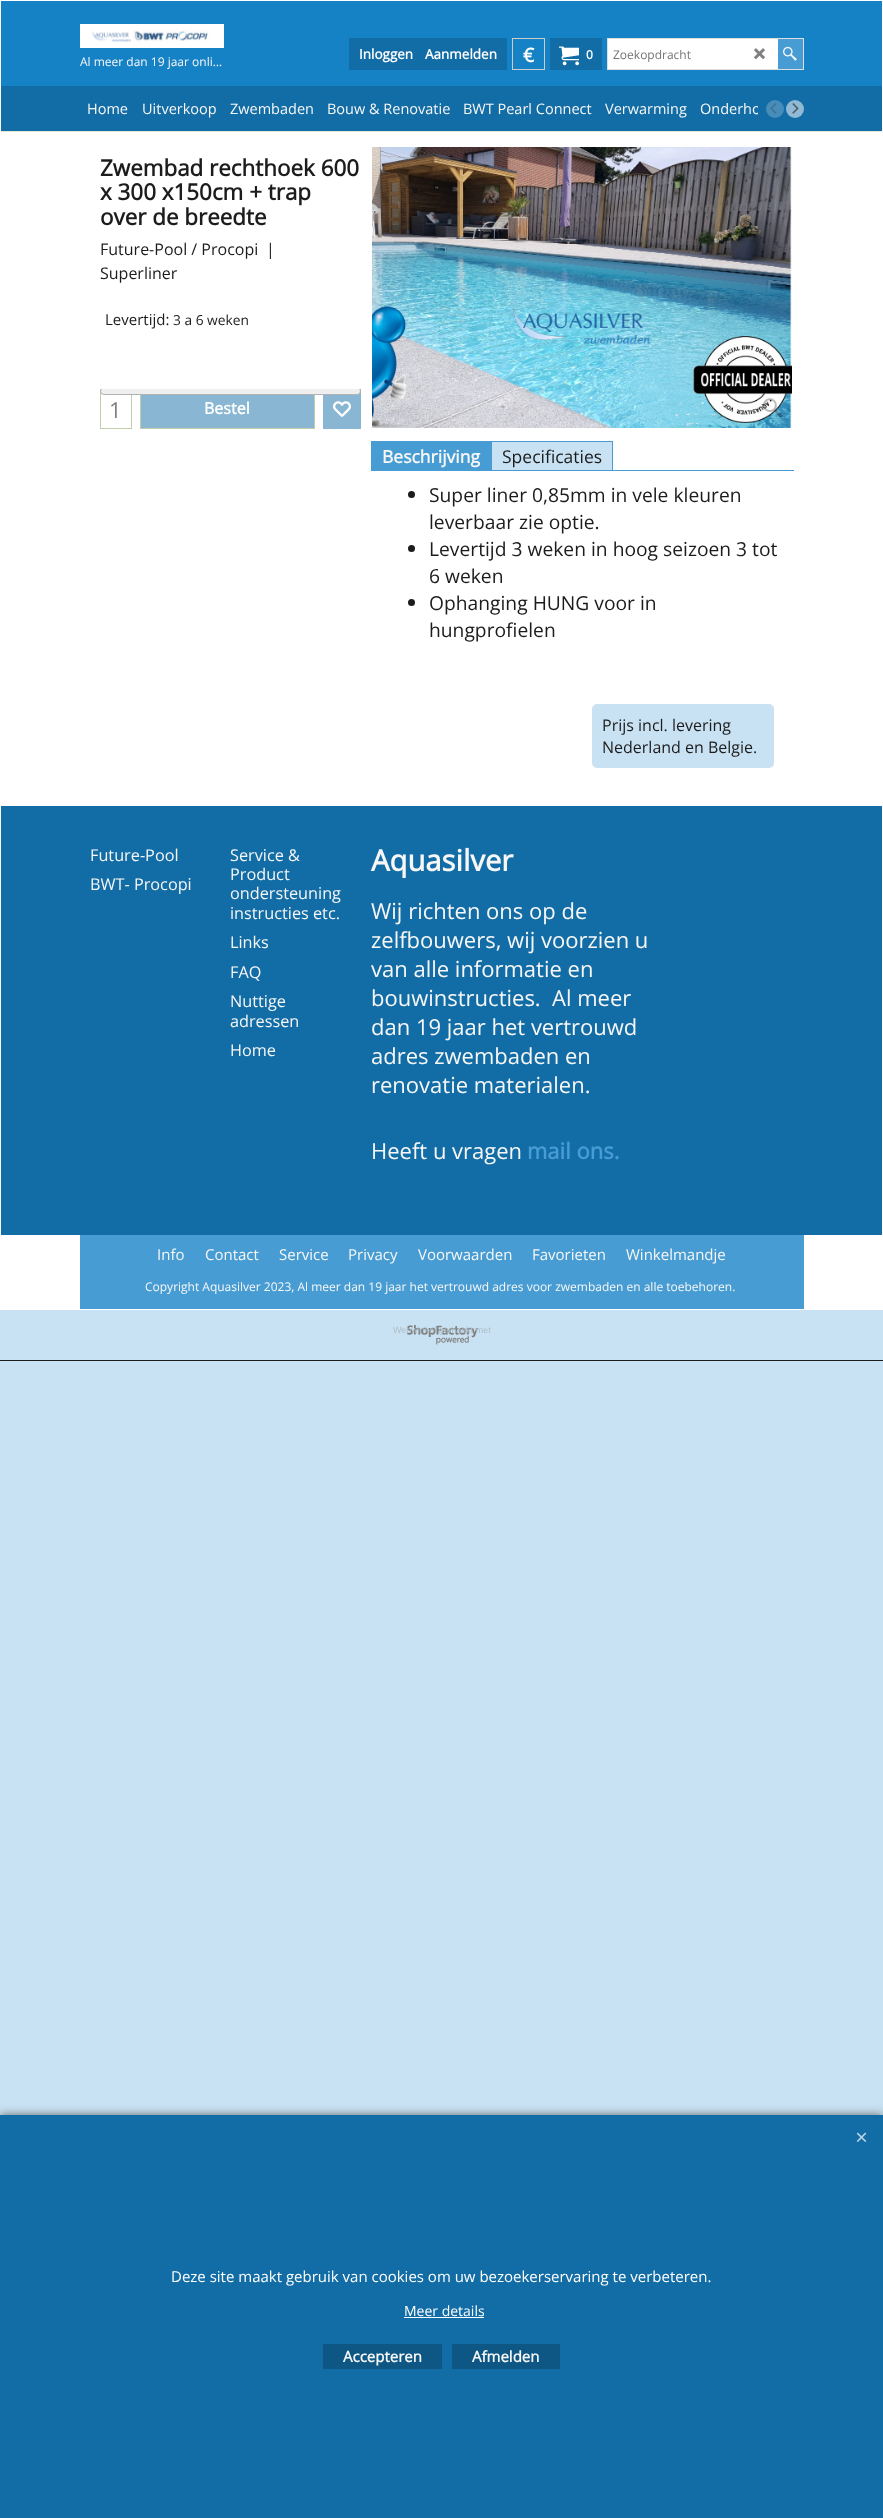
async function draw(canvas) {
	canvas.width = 883;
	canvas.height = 2518;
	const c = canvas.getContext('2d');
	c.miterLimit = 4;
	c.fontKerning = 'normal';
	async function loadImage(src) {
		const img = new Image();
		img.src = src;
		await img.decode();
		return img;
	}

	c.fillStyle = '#c8e2f3';
	c.fillRect(0, 0, 883, 2518);
	c.fillStyle = '#fff';
	c.fillRect(0, 0, 883, 1310);
	c.fillStyle = '#1682c6';
	c.fillRect(1, 1, 881, 85);
	c.drawImage(await loadImage('img1.png'), 80, 24, 144, 24);
	c.font = '12px Open Sans';
	c.fillStyle = '#f7f7f7';
	c.fillText('Al meer dan 19 jaar onli…', 80, 66);
	c.fillStyle = '#126ca5';
	c.fillRect(349, 38, 158, 32);
	c.font = 'bold 13.5px Open Sans';
	c.fillStyle = '#fff';
	c.fillText('Inloggen', 359, 59);
	c.fillText('Aanmelden', 425, 59);
	c.strokeStyle = '#ccc';
	c.strokeRect(512.5, 38.5, 32, 31);
	c.font = 'bold 19.25px Open Sans';
	c.fillText('€', 523, 62);
	c.fillStyle = '#126ca5';
	c.fillRect(550, 38, 52, 32);
	c.drawImage(await loadImage('img2.png'), 559, 46, 20, 20);
	c.font = 'bold 12px Open Sans';
	c.fillStyle = '#fff';
	c.fillText('0', 586, 59);
	c.fillStyle = '#dedede';
	c.fillRect(607, 38, 197, 32);
	c.fillStyle = '#fff';
	c.fillRect(608, 39, 170, 30);
	c.font = '12px Open Sans';
	c.fillStyle = '#757575';
	c.fillText('Zoekopdracht', 613, 59);
	c.drawImage(await loadImage('img3.png'), 754, 48, 11, 12);
	c.fillStyle = '#479dd3';
	c.fillRect(778, 39, 25, 30);
	c.drawImage(await loadImage('img4.png'), 783, 46, 14, 15);
	c.fillStyle = '#126ca5';
	c.fillRect(1, 86, 881, 45);
	c.fillStyle = '#e3ebd6';
	c.fillRect(1, 131, 881, 1);
	c.font = '14.5px Open Sans';
	c.fillStyle = '#f7f7f7';
	for (const [text, x, y] of [
		['Home', 87, 114],
		['Uitverkoop', 142, 114],
		['Zwembaden', 230, 114],
		['Bouw & Renovatie', 327, 114],
		['BWT Pearl Connect', 463, 114],
		['Verwarming', 605, 114],
	]) {
		c.fillText(text, x, y);
	}
	c.save();
	c.beginPath();
	c.rect(80, 86, 678, 45);
	c.clip();
	c.fillText('Onderho', 700, 114);
	c.restore();
	c.fillStyle = '#478db9';
	c.beginPath();
	c.arc(775, 109, 9, 0, 2 * Math.PI);
	c.fill();
	c.drawImage(await loadImage('img5.png'), 770, 103, 7, 11);
	c.fillStyle = '#8fb9d4';
	c.beginPath();
	c.arc(795, 109, 9, 0, 2 * Math.PI);
	c.fill();
	c.drawImage(await loadImage('img6.png'), 792, 103, 7, 11);
	c.font = 'bold 22.4px Open Sans';
	c.fillStyle = '#1c1c1c';
	for (const [text, x, y] of [
		['Zwembad rechthoek 600', 100, 176],
		['x 300 x150cm + trap', 100, 200],
		['over de breedte', 100, 225],
	]) {
		c.fillText(text, x, y);
	}
	c.font = '16px Open Sans';
	for (const [text, x, y] of [
		['Future-Pool / Procopi', 100, 255],
		['|', 266, 255],
		['Superliner', 100, 279],
	]) {
		c.fillText(text, x, y);
	}
	c.font = '15px Open Sans';
	c.fillText('Levertijd:', 105, 325);
	c.font = '13.75px Open Sans';
	c.fillText('3 a 6 weken', 173, 325);
	c.strokeStyle = '#c1ceab';
	c.strokeRect(100.5, 389.5, 31, 39);
	c.fillStyle = '#89b6d2';
	c.fillRect(141, 395, 173, 33);
	c.strokeRect(140.5, 389.5, 174, 39);
	c.fillRect(323, 389, 38, 40);
	c.save();
	c.beginPath();
	c.rect(100, 389, 261, 40);
	c.clip();
	c.fillStyle = '#efefef';
	c.beginPath();
	c.roundRect(100.5, 387.5, 260, 7, 3.5);
	c.fill();
	c.strokeStyle = '#b2b2b2';
	c.stroke();
	c.restore();
	c.font = '22px Open Sans';
	c.fillStyle = '#808080';
	c.fillText('1', 109, 418);
	c.font = 'bold 16px Open Sans';
	c.fillStyle = '#fff';
	c.fillText('Bestel', 204, 414);
	c.drawImage(await loadImage('img7.png'), 333, 401, 18, 16);
	c.drawImage(await loadImage('img8.png'), 372, 147, 420, 281);
	c.drawImage(await loadImage('img9.png'), 763, 398, 20, 20);
	c.fillStyle = '#479dd3';
	c.fillRect(371, 441, 120, 30);
	c.font = 'bold 17.5px Open Sans';
	c.fillStyle = '#f7f7f7';
	c.fillText('Beschrijving', 382, 463);
	for (const [x, y, w, h, color] of [
		[492, 442, 120, 28, '#c8e2f3'],
		[491, 441, 122, 1, '#479dd3'],
		[612, 441, 1, 29, '#479dd3'],
		[491, 441, 1, 29, '#479dd3'],
	]) {
		c.fillStyle = color;
		c.fillRect(x, y, w, h);
	}
	c.font = '17.5px Open Sans';
	c.fillStyle = '#1c1c1c';
	c.fillText('Specificaties', 502, 463);
	c.fillStyle = '#479dd3';
	c.fillRect(491, 470, 303, 1);
	c.fillStyle = '#1c1c1c';
	c.beginPath();
	c.arc(411.5, 494.5, 3.5, 0, 2 * Math.PI);
	c.fill();
	c.font = '19.25px Open Sans';
	c.fillText('Super liner 0,85mm in vele kleuren', 429, 502);
	c.fillText('leverbaar zie optie.', 429, 529);
	c.beginPath();
	c.arc(411.5, 548.5, 3.5, 0, 2 * Math.PI);
	c.fill();
	c.fillText('Levertijd 3 weken in hoog seizoen 3 tot', 429, 556);
	c.fillText('6 weken', 429, 583);
	c.beginPath();
	c.arc(411.5, 602.5, 3.5, 0, 2 * Math.PI);
	c.fill();
	c.fillText('Ophanging HUNG voor in', 429, 610);
	c.fillText('hungprofielen', 429, 637);
	c.fillStyle = '#c8e2f3';
	c.beginPath();
	c.roundRect(592, 704, 182, 64, 5);
	c.fill();
	c.font = '16px Open Sans';
	c.fillStyle = '#1c1c1c';
	c.fillText('Prijs incl. levering', 602, 731);
	c.fillText('Nederland en Belgie.', 602, 753);
	c.fillStyle = '#479dd3';
	c.fillRect(80, 1235, 724, 74);
	c.fillStyle = '#126ca5';
	c.fillRect(1, 806, 881, 429);
	c.font = '16.25px Open Sans';
	c.fillStyle = '#f7f7f7';
	for (const [text, x, y] of [
		['Future-Pool', 90, 861],
		['BWT- Procopi', 90, 890],
		['Service &', 230, 861],
		['Product', 230, 880],
		['ondersteuning', 230, 899],
		['instructies etc.', 230, 919],
		['Links', 230, 948],
		['FAQ', 230, 978],
		['Nuttige', 230, 1007],
		['adressen', 230, 1027],
		['Home', 230, 1056],
	]) {
		c.fillText(text, x, y);
	}
	c.font = 'bold 29.25px Open Sans';
	c.fillText('Aquasilver', 371, 871);
	c.font = '22px Open Sans';
	for (const [text, x, y] of [
		['Wij richten ons op de', 371, 919],
		['zelfbouwers, wij voorzien u', 371, 948],
		['van alle informatie en', 371, 977],
		['bouwinstructies.  Al meer', 371, 1006],
		['dan 19 jaar het vertrouwd', 371, 1035],
		['adres zwembaden en', 371, 1064],
		['renovatie materialen.', 371, 1093],
		['Heeft u vragen', 371, 1159],
	]) {
		c.fillText(text, x, y);
	}
	c.font = 'bold 22px Open Sans';
	c.fillStyle = '#479dd3';
	c.fillText('mail ons.', 527, 1159);
	c.font = '15px Open Sans';
	c.fillStyle = '#f7f7f7';
	for (const [text, x, y] of [
		['Info', 157, 1260],
		['Contact', 205, 1260],
		['Service', 279, 1260],
		['Privacy', 348, 1260],
		['Voorwaarden', 418, 1260],
		['Favorieten', 532, 1260],
		['Winkelmandje', 626, 1260],
	]) {
		c.fillText(text, x, y);
	}
	c.font = '12px Open Sans';
	c.fillText('Copyright Aquasilver 2023, Al meer dan 19 jaar het vertrouwd adres voor zwembaden en alle toebehoren.', 145, 1291);
	c.drawImage(await loadImage('img10.png'), 407, 1325, 71, 20);
	c.font = '9px Liberation Sans';
	c.fillStyle = '#adbec8';
	c.fillText('Webwinkel gemaakt met', 393, 1333);
	c.fillStyle = '#1c1c1c';
	c.fillRect(0, 1360, 883, 1);
	c.fillStyle = '#666';
	c.filter = 'blur(5px)';
	c.beginPath();
	c.rect(0, 2115, 883, 403);
	c.fill();
	c.filter = 'none';
	c.fillStyle = '#126ca5';
	c.fillRect(0, 2115, 883, 403);
	c.drawImage(await loadImage('img11.png'), 856, 2132, 11, 10);
	c.font = '15px Open Sans';
	c.fillStyle = '#fff';
	c.fillText('Deze site maakt gebruik van cookies om uw bezoekerservaring te verbeteren.', 171, 2282);
	c.font = '14px Open Sans';
	c.fillText('Meer details', 404, 2316);
	c.fillRect(404, 2317, 80, 1);
	c.fillStyle = '#0e5684';
	c.fillRect(323, 2344, 119, 25);
	c.font = 'bold 15px Open Sans';
	c.fillStyle = '#f7f7f7';
	c.fillText('Accepteren', 343, 2362);
	c.fillStyle = '#0e5684';
	c.fillRect(452, 2344, 108, 25);
	c.fillStyle = '#f7f7f7';
	c.fillText('Afmelden', 472, 2362);
}

draw(document.querySelector('canvas'));
